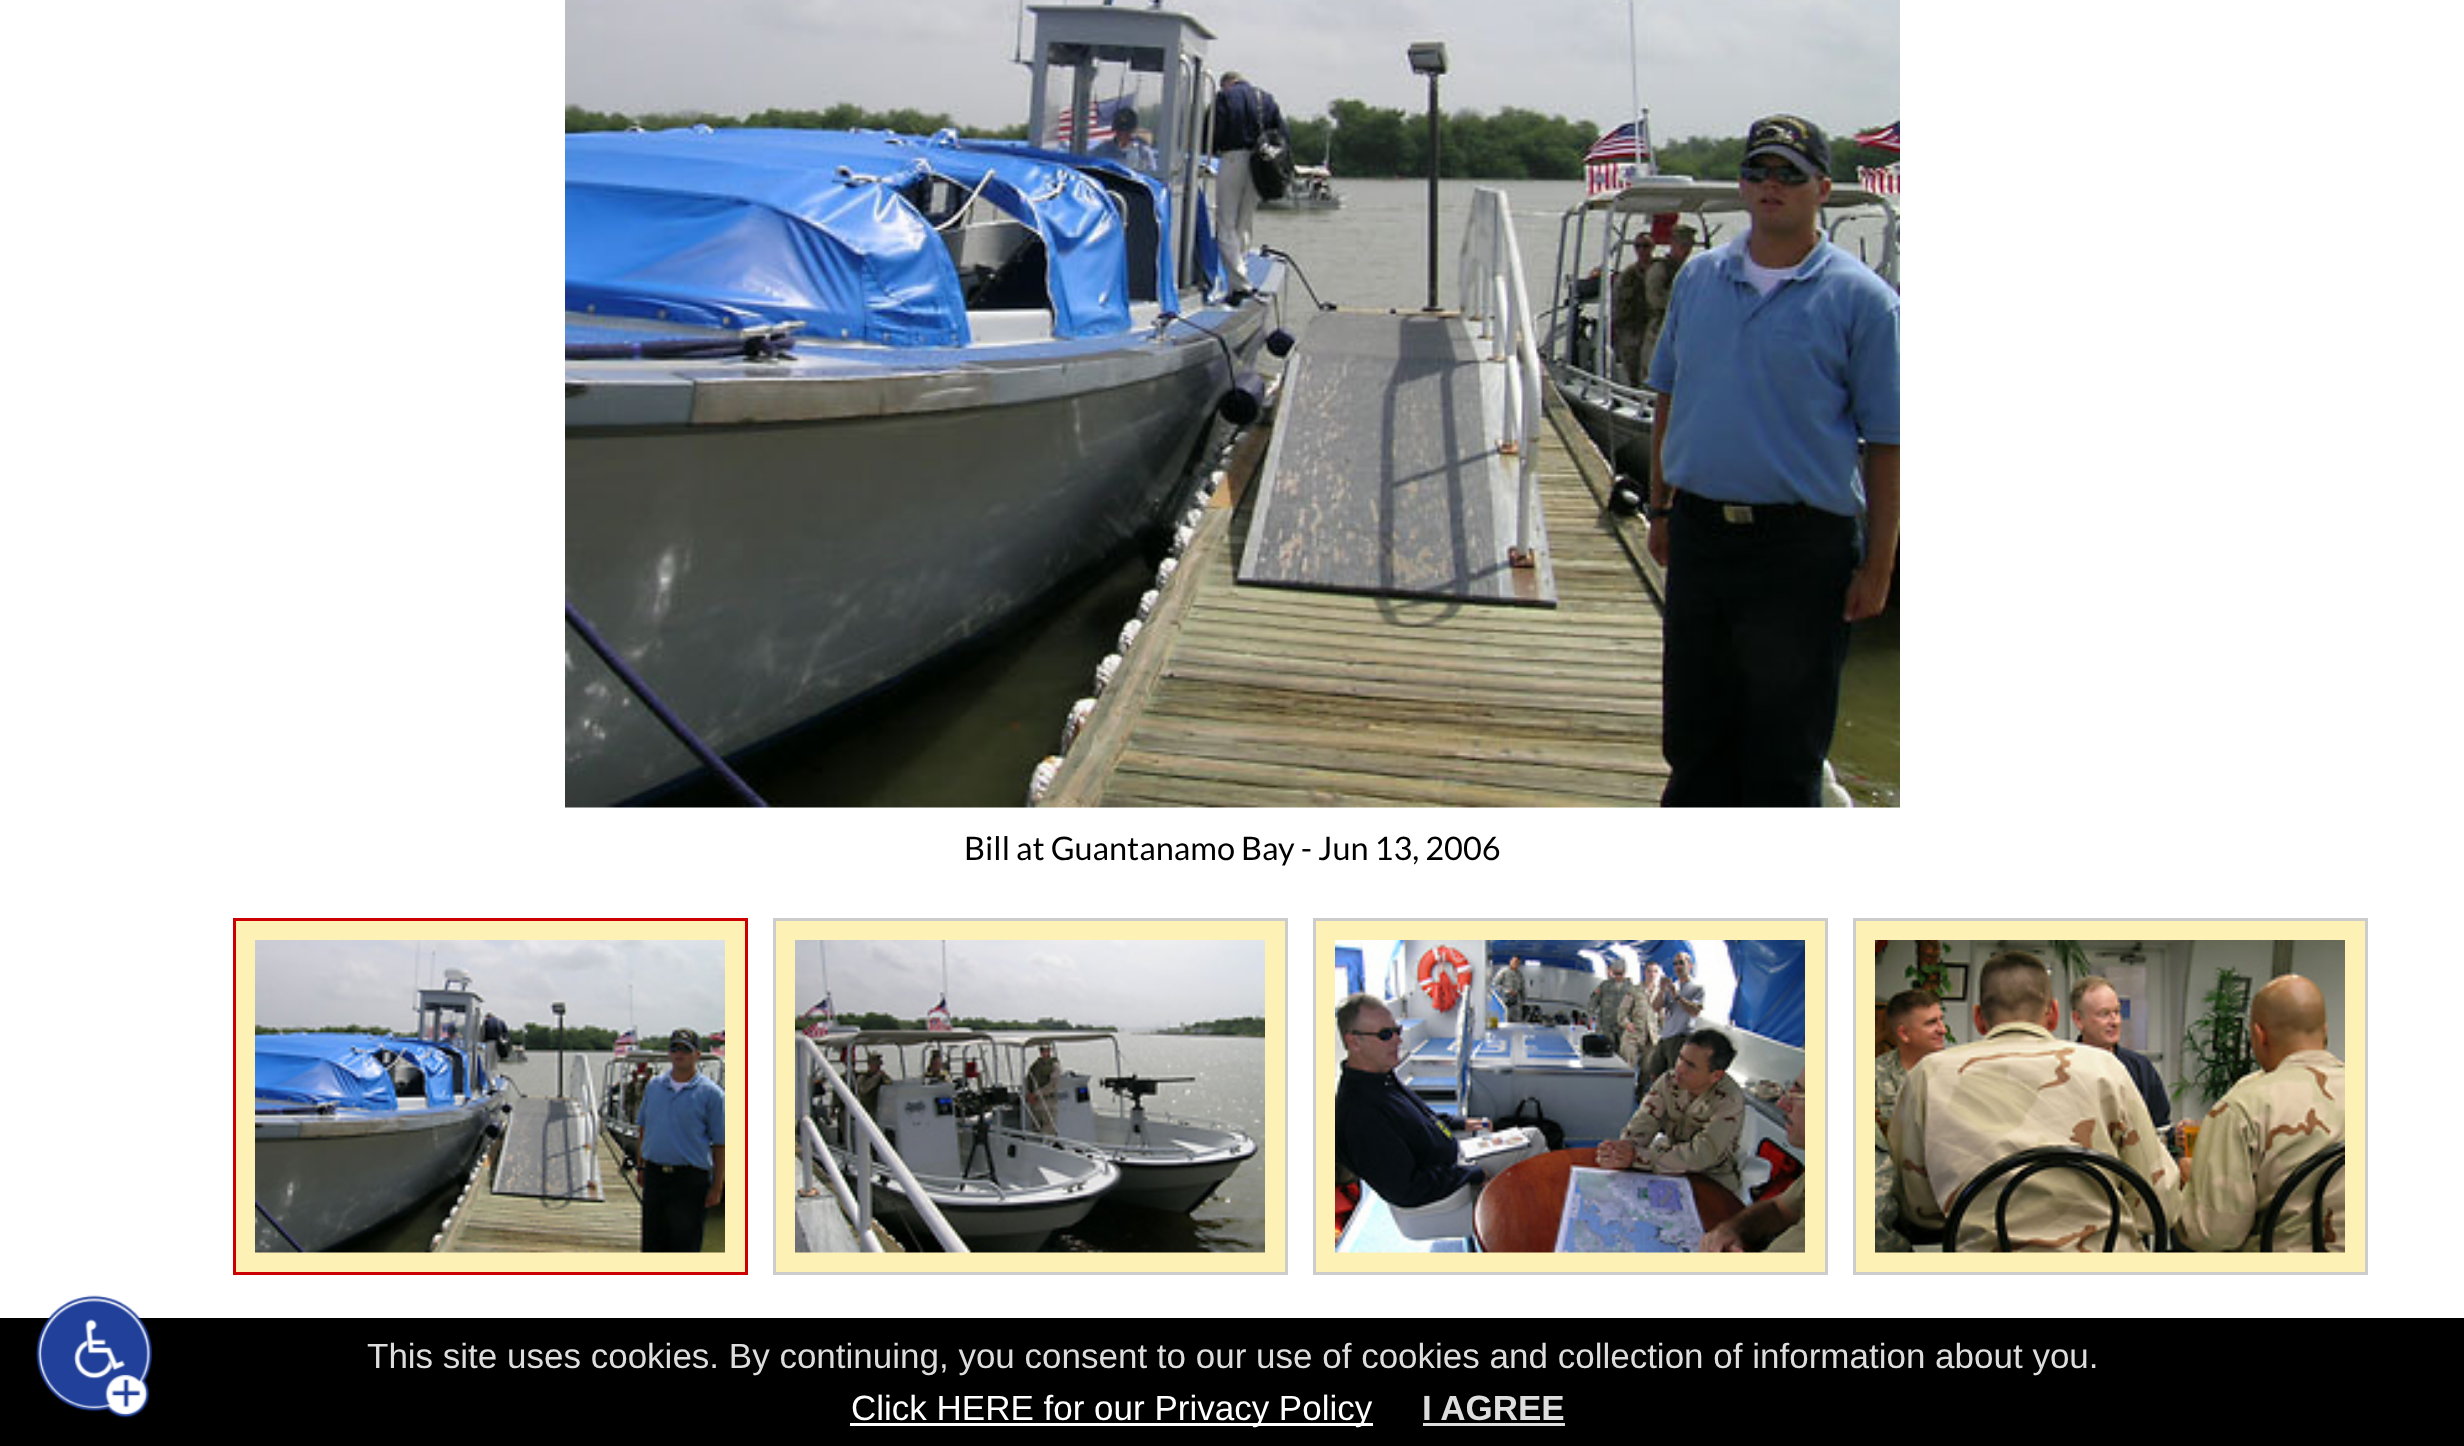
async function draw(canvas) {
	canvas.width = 2464;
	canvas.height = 1446;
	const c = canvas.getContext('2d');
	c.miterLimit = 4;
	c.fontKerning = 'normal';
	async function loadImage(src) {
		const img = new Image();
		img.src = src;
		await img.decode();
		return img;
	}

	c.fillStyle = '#fff';
	c.fillRect(0, 0, 2464, 1446);
	c.drawImage(await loadImage('img1.png'), 565, 0, 1335, 808);
	c.wordSpacing = '-0.25px';
	c.font = '32.5px Lato';
	c.fillStyle = '#000';
	c.fillText('Bill at Guantanamo Bay - Jun 13, 2006', 964, 860);
	c.fillStyle = '#fef1b5';
	c.beginPath();
	c.rect(234.5, 919.5, 512, 354);
	c.fill();
	c.strokeStyle = '#c00';
	c.lineWidth = 3;
	c.stroke();
	c.drawImage(await loadImage('img2.png'), 255, 940, 470, 313);
	c.beginPath();
	c.rect(774.5, 919.5, 512, 354);
	c.fill();
	c.strokeStyle = '#ccc';
	c.stroke();
	c.drawImage(await loadImage('img3.png'), 795, 940, 470, 313);
	c.beginPath();
	c.rect(1314.5, 919.5, 512, 354);
	c.fill();
	c.stroke();
	c.drawImage(await loadImage('img4.png'), 1335, 940, 470, 313);
	c.beginPath();
	c.rect(1854.5, 919.5, 512, 354);
	c.fill();
	c.stroke();
	c.drawImage(await loadImage('img5.png'), 1875, 940, 470, 313);
	c.fillStyle = '#000';
	c.fillRect(0, 1318, 2464, 128);
	c.drawImage(await loadImage('img6.png'), 36, 1295, 116, 123);
	c.wordSpacing = '0px';
	c.font = '35px Liberation Sans';
	c.fillStyle = '#ddd';
	c.fillText('This site uses cookies. By continuing, you consent to our use of cookies and collection of information about you.', 367, 1368);
	c.fillStyle = '#fff';
	c.fillRect(850, 1423, 523, 3);
	c.fillText('Click HERE for our Privacy Policy', 851, 1420);
	c.font = 'bold 35px Liberation Sans';
	c.fillStyle = '#ddd';
	c.fillText('I AGREE', 1422, 1420);
	c.fillRect(1423, 1423, 142, 3);
}

draw(document.querySelector('canvas'));
